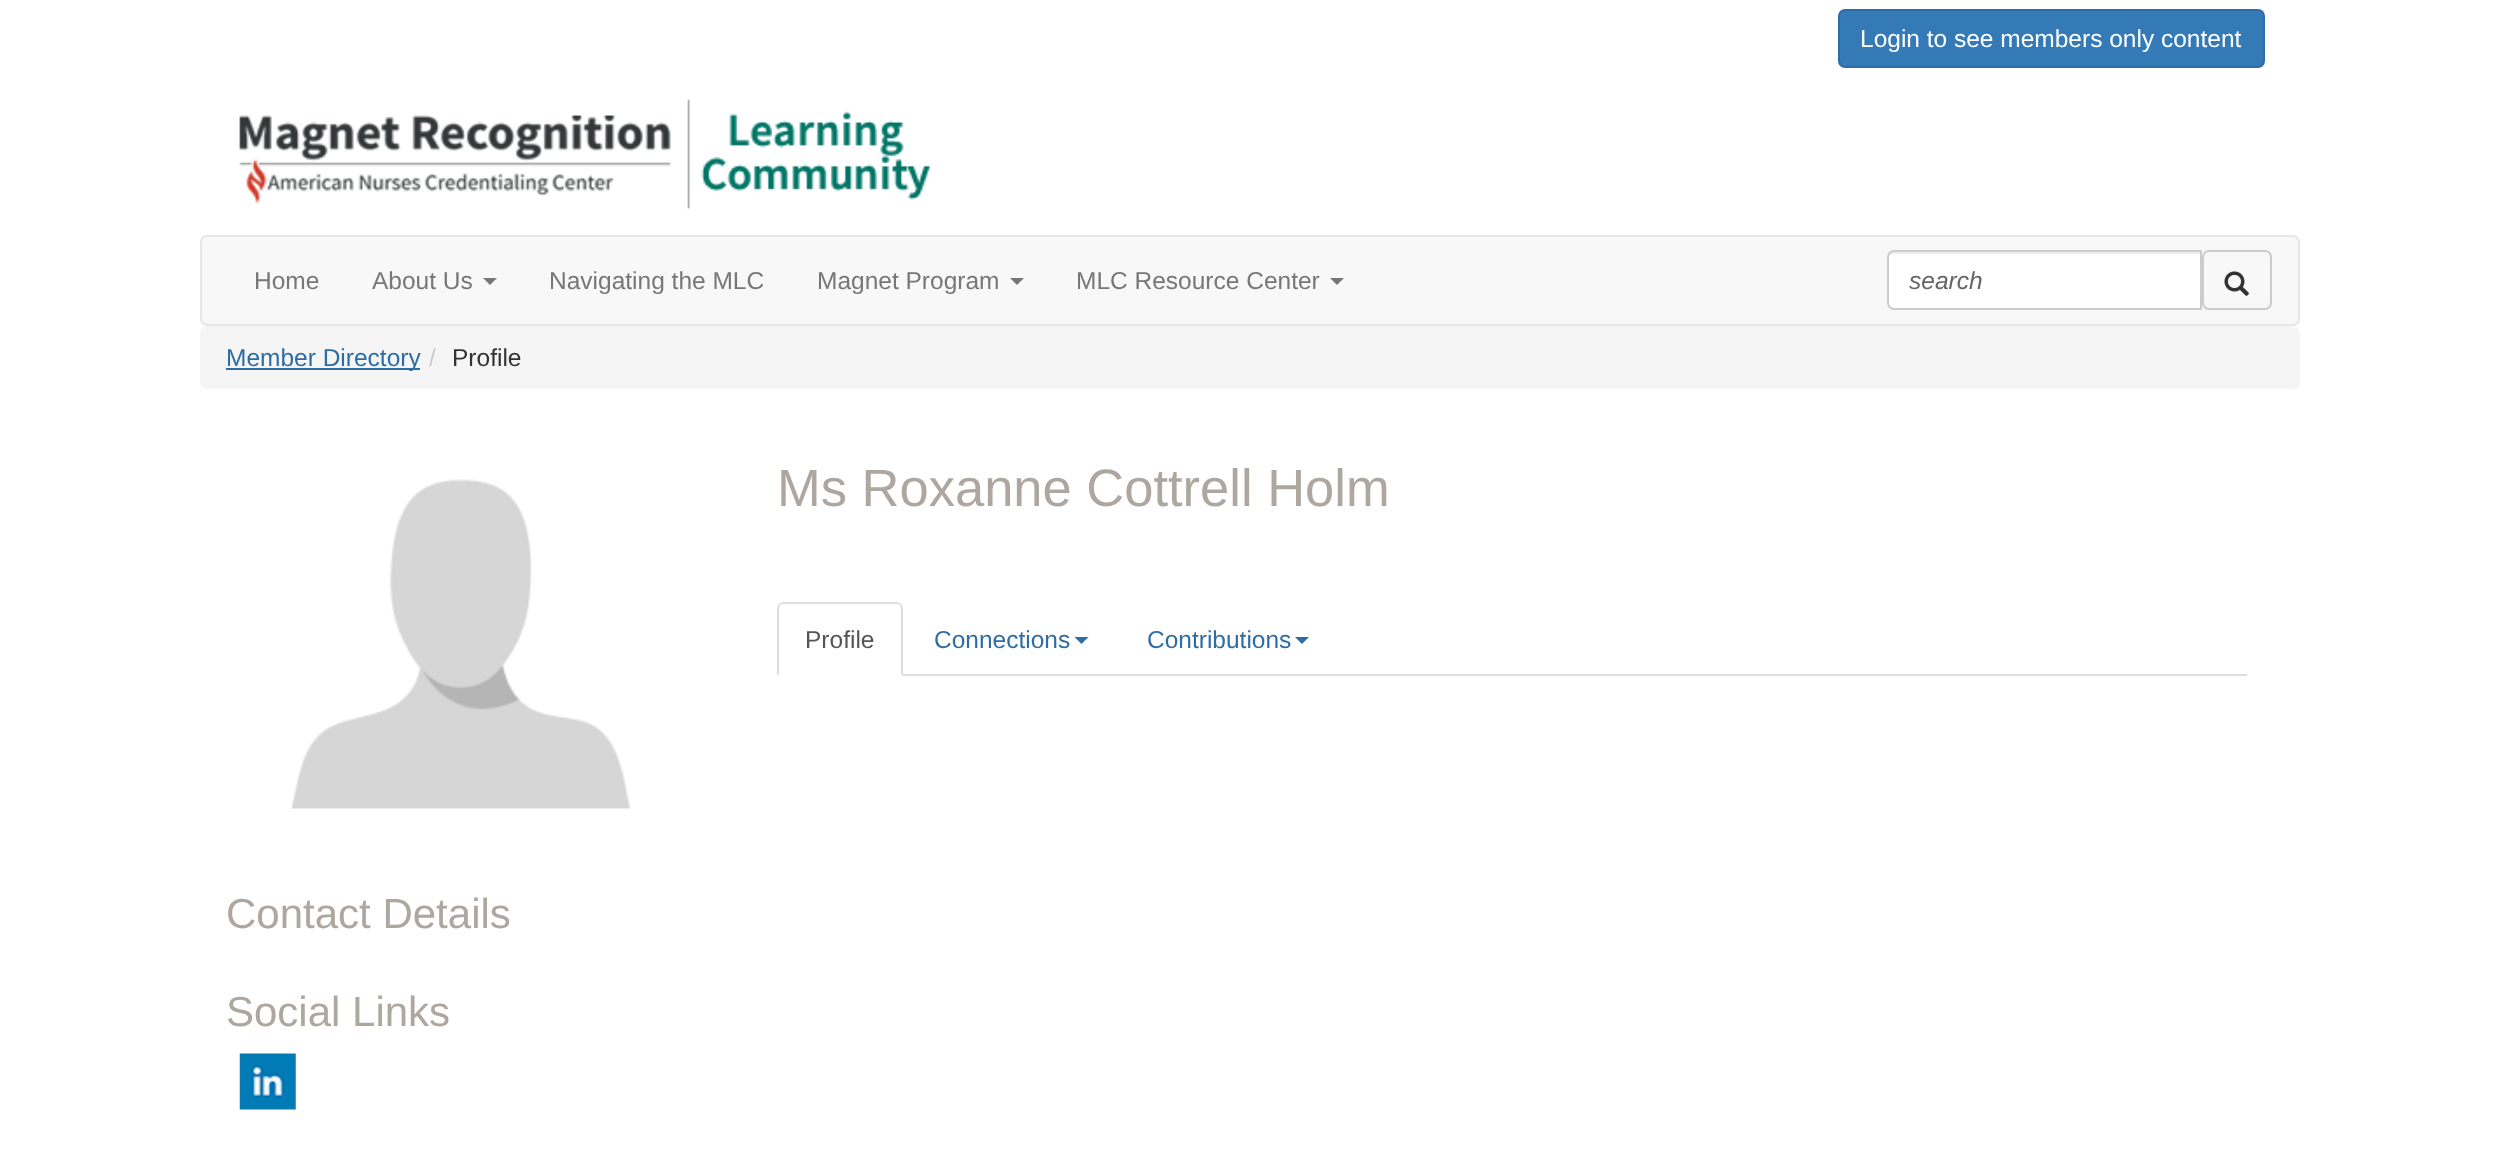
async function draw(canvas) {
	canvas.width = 2498;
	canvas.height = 1164;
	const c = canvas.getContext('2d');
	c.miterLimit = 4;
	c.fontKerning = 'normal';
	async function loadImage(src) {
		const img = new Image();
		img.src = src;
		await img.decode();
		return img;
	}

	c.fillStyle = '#fff';
	c.fillRect(0, 0, 2498, 1164);
	c.fillStyle = '#337ab7';
	c.beginPath();
	c.roundRect(1839, 10, 425, 57, 6);
	c.fill();
	c.strokeStyle = '#2e6da4';
	c.lineWidth = 2;
	c.stroke();
	c.font = '24.5px Liberation Sans';
	c.fillStyle = '#fff';
	c.fillText('Login to see members only content', 1860, 47);
	c.drawImage(await loadImage('img1.png'), 239, 99, 693, 110);
	c.fillStyle = '#f8f8f8';
	c.beginPath();
	c.roundRect(201, 236, 2098, 89, 6);
	c.fill();
	c.strokeStyle = '#e7e7e7';
	c.stroke();
	c.fillStyle = '#777';
	c.fillText('Home', 254, 289);
	c.fillText('About Us', 372, 289);
	c.beginPath();
	c.moveTo(483, 278);
	c.lineTo(497, 278);
	c.lineTo(490, 285);
	c.closePath();
	c.fill();
	c.fillText('Navigating the MLC', 549, 289);
	c.fillText('Magnet Program', 817, 289);
	c.beginPath();
	c.moveTo(1010, 278);
	c.lineTo(1024, 278);
	c.lineTo(1017, 285);
	c.closePath();
	c.fill();
	c.fillText('MLC Resource Center', 1076, 289);
	c.beginPath();
	c.moveTo(1330, 278);
	c.lineTo(1344, 278);
	c.lineTo(1337, 285);
	c.closePath();
	c.fill();
	c.fillStyle = '#fff';
	c.beginPath();
	c.roundRect(1887, 250, 315, 60, [7, 0, 0, 7]);
	c.fill();
	c.fillStyle = '#ececec';
	c.beginPath();
	c.moveTo(1894, 254);
	c.lineTo(2200, 254);
	c.lineTo(2200, 252);
	c.lineTo(1892, 252);
	c.bezierCurveTo(1888, 253, 1888, 256, 1888, 259);
	c.bezierCurveTo(1888, 256, 1891, 254, 1894, 254);
	c.closePath();
	c.fill();
	c.beginPath();
	c.roundRect(1888, 251, 313, 58, [6, 0, 0, 6]);
	c.strokeStyle = '#ccc';
	c.stroke();
	c.font = 'italic 24.5px Liberation Sans';
	c.fillStyle = '#666';
	c.fillText('search', 1909, 289);
	c.beginPath();
	c.roundRect(2203, 251, 68, 58, 6);
	c.stroke();
	c.drawImage(await loadImage('img2.png'), 2224, 271, 25, 25);
	c.fillStyle = '#f5f5f5';
	c.beginPath();
	c.roundRect(200, 326, 2100, 63, 7);
	c.fill();
	c.fillStyle = '#2e6da4';
	c.fillRect(226, 368, 194, 2);
	c.font = '24.5px Liberation Sans';
	c.fillText('Member Directory', 226, 366);
	c.fillStyle = '#ccc';
	c.fillText('/', 429, 366);
	c.fillStyle = '#333';
	c.fillText('Profile', 452, 366);
	c.font = '52.5px Liberation Sans';
	c.fillStyle = '#aea79f';
	c.fillText('Ms Roxanne Cottrell Holm', 777, 506);
	c.fillStyle = '#ddd';
	c.fillRect(903, 674, 1344, 2);
	c.beginPath();
	c.moveTo(784, 602);
	c.bezierCurveTo(782, 602, 780, 603, 779, 604);
	c.lineTo(780, 605);
	c.bezierCurveTo(781, 604, 782, 604, 784, 604);
	c.lineTo(896, 604);
	c.bezierCurveTo(898, 604, 899, 604, 900, 605);
	c.lineTo(901, 604);
	c.bezierCurveTo(900, 603, 898, 602, 896, 602);
	c.closePath();
	c.fill();
	c.beginPath();
	c.moveTo(903, 676);
	c.lineTo(903, 609);
	c.bezierCurveTo(903, 607, 902, 605, 901, 604);
	c.lineTo(900, 605);
	c.bezierCurveTo(900, 606, 901, 608, 901, 609);
	c.lineTo(901, 674);
	c.closePath();
	c.fill();
	c.beginPath();
	c.moveTo(777, 676);
	c.lineTo(779, 674);
	c.lineTo(779, 609);
	c.bezierCurveTo(779, 608, 780, 606, 780, 605);
	c.lineTo(779, 604);
	c.bezierCurveTo(778, 605, 777, 607, 777, 609);
	c.closePath();
	c.fill();
	c.font = '24.5px Liberation Sans';
	c.fillStyle = '#555';
	c.fillText('Profile', 805, 648);
	c.fillStyle = '#2e6da4';
	c.fillText('Connections', 934, 648);
	c.beginPath();
	c.moveTo(1074.5, 637);
	c.lineTo(1088.5, 637);
	c.lineTo(1081.5, 644);
	c.closePath();
	c.fill();
	c.fillText('Contributions', 1147, 648);
	c.beginPath();
	c.moveTo(1295, 637);
	c.lineTo(1309, 637);
	c.lineTo(1302, 644);
	c.closePath();
	c.fill();
	c.drawImage(await loadImage('img3.png'), 290, 479, 341, 330);
	c.font = '42px Liberation Sans';
	c.fillStyle = '#aea79f';
	c.fillText('Contact Details', 226, 928);
	c.fillText('Social Links', 226, 1026);
	c.drawImage(await loadImage('img4.png'), 239, 1053, 57, 57);
}

draw(document.querySelector('canvas'));
